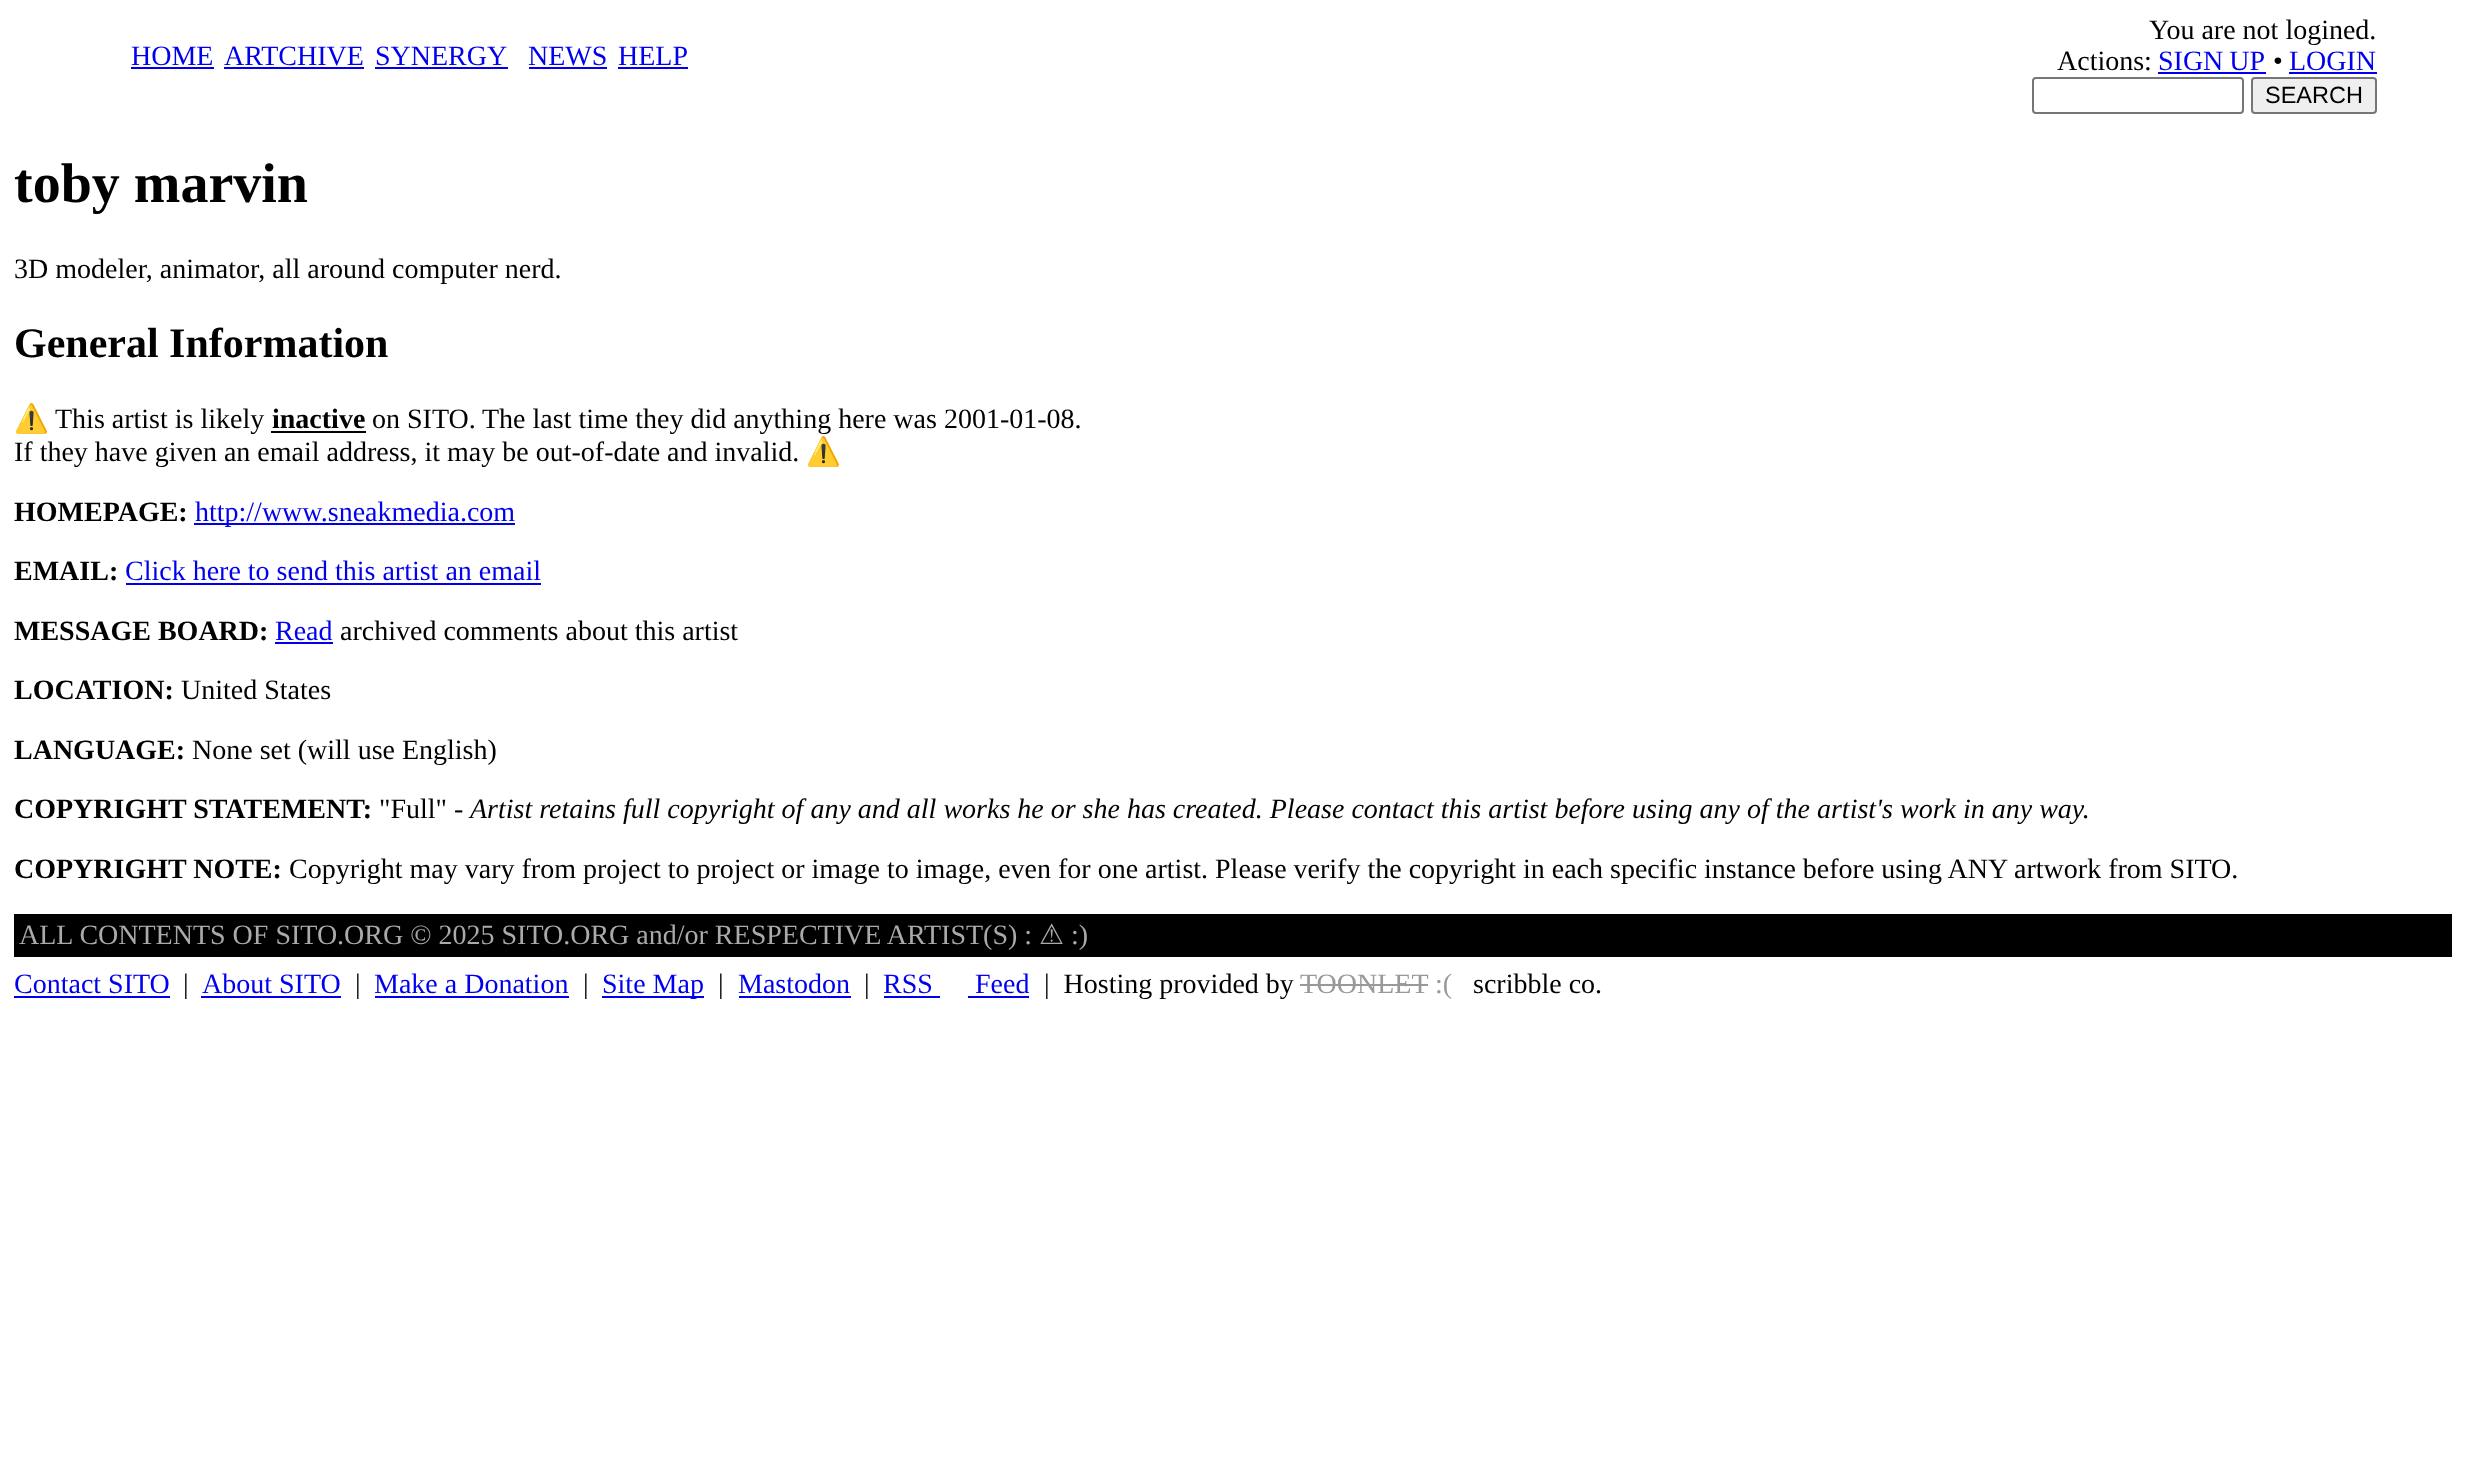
async function draw(canvas) {
	canvas.width = 2465;
	canvas.height = 1476;
	const c = canvas.getContext('2d');
	c.miterLimit = 4;
	c.fontKerning = 'normal';

	c.fillStyle = '#fff';
	c.fillRect(0, 0, 2465, 1476);
	c.font = '28px Liberation Serif';
	c.fillStyle = '#00e';
	c.fillText('HOME', 131, 65);
	c.fillRect(131, 67, 83, 2);
	c.fillText('ARTCHIVE', 224, 65);
	c.fillRect(224, 67, 140, 2);
	c.fillText('SYNERGY', 375, 65);
	c.fillRect(375, 67, 133, 2);
	c.fillText('NEWS', 528, 65);
	c.fillRect(529, 67, 78, 2);
	c.fillText('HELP', 618, 65);
	c.fillRect(618, 67, 70, 2);
	c.fillStyle = '#000';
	c.fillText('You are not logined.', 2149, 39);
	c.fillText('Actions:', 2057, 70);
	c.wordSpacing = '-1px';
	c.fillStyle = '#00e';
	c.fillText('SIGN UP', 2158, 70);
	c.fillRect(2158, 72, 108, 2);
	c.wordSpacing = '0px';
	c.fillStyle = '#000';
	c.fillText('•', 2273, 70);
	c.fillStyle = '#00e';
	c.fillText('LOGIN', 2289, 70);
	c.fillRect(2289, 72, 88, 2);
	c.beginPath();
	c.roundRect(2033, 78, 210, 35, 3);
	c.strokeStyle = '#767676';
	c.lineWidth = 2;
	c.stroke();
	c.fillStyle = '#efefef';
	c.beginPath();
	c.roundRect(2252, 78, 124, 35, 3);
	c.fill();
	c.stroke();
	c.font = '23.5px Liberation Sans';
	c.fillStyle = '#000';
	c.fillText('SEARCH', 2265, 103);
	c.font = 'bold 56px Liberation Serif';
	c.fillText('toby marvin', 14, 202);
	c.font = '28px Liberation Serif';
	c.fillText('3D modeler, animator, all around computer nerd.', 14, 278);
	c.font = 'bold 42px Liberation Serif';
	c.fillText('General Information', 14, 357);
	c.font = '28px Noto Color Emoji';
	c.fillText('⚠️', 14, 428);
	c.font = '28px Liberation Serif';
	c.fillText('This artist is likely', 55, 428);
	c.font = 'bold 28px Liberation Serif';
	c.fillText('inactive', 272, 428);
	c.fillRect(271, 431, 95, 2);
	c.font = '28px Liberation Serif';
	for (const [text, x, y] of [
		['on SITO.', 372, 428],
		['The last time they did anything here was 2001-01-08.', 482, 428],
		['If they have given an email address, it may be out-of-date and invalid.', 14, 461],
	]) {
		c.fillText(text, x, y);
	}
	c.font = '28px Noto Color Emoji';
	c.fillText('⚠️', 806, 461);
	c.font = 'bold 28px Liberation Serif';
	c.fillText('HOMEPAGE:', 14, 521);
	c.fillStyle = '#00e';
	c.fillRect(194, 523, 321, 2);
	c.font = '28px Liberation Serif';
	c.fillText('http://www.sneakmedia.com', 195, 521);
	c.font = 'bold 28px Liberation Serif';
	c.fillStyle = '#000';
	c.fillText('EMAIL:', 14, 580);
	c.font = '28px Liberation Serif';
	c.fillStyle = '#00e';
	c.fillText('Click here to send this artist an email', 125, 580);
	c.fillRect(126, 583, 415, 2);
	c.font = 'bold 28px Liberation Serif';
	c.fillStyle = '#000';
	c.fillText('MESSAGE BOARD:', 14, 640);
	c.font = '28px Liberation Serif';
	c.fillStyle = '#00e';
	c.fillText('Read', 275, 640);
	c.fillRect(275, 642, 58, 2);
	c.fillStyle = '#000';
	c.fillText('archived comments about this artist', 340, 640);
	c.font = 'bold 28px Liberation Serif';
	c.fillText('LOCATION:', 14, 699);
	c.font = '28px Liberation Serif';
	c.fillText('United States', 181, 699);
	c.font = 'bold 28px Liberation Serif';
	c.fillText('LANGUAGE:', 14, 759);
	c.font = '28px Liberation Serif';
	c.fillText('None set (will use English)', 192, 759);
	c.font = 'bold 28px Liberation Serif';
	c.fillText('COPYRIGHT STATEMENT:', 14, 818);
	c.font = '28px Liberation Serif';
	c.fillText('"Full" -', 379, 818);
	c.font = 'italic 28px Liberation Serif';
	c.fillText('Artist retains full copyright of any and all works he or she has created. Please contact this artist before using any of the artist\'s work in any way.', 470, 818);
	c.font = 'bold 28px Liberation Serif';
	c.fillText('COPYRIGHT NOTE:', 14, 878);
	c.font = '28px Liberation Serif';
	c.fillText('Copyright may vary from project to project or image to image, even for one artist. Please verify the copyright in each specific instance before using ANY artwork from SITO.', 289, 878);
	c.fillRect(14, 914, 2438, 43);
	c.fillStyle = '#aaa';
	c.fillText('ALL CONTENTS OF SITO.ORG © 2025 SITO.ORG and/or RESPECTIVE ARTIST(S) :', 19, 944);
	c.font = '28px DejaVu Sans';
	c.fillText('⚠', 1039, 944);
	c.font = '28px Liberation Serif';
	c.fillText(':)', 1071, 944);
	c.fillStyle = '#00e';
	c.fillText('Contact SITO', 14, 993);
	c.fillRect(14, 996, 156, 2);
	c.fillStyle = '#000';
	c.fillText('|', 183, 993);
	c.fillStyle = '#00e';
	c.fillText('About SITO', 202, 993);
	c.fillRect(201, 996, 140, 2);
	c.fillStyle = '#000';
	c.fillText('|', 355, 993);
	c.fillStyle = '#00e';
	c.fillText('Make a Donation', 374, 993);
	c.fillRect(375, 996, 194, 2);
	c.fillStyle = '#000';
	c.fillText('|', 583, 993);
	c.fillStyle = '#00e';
	c.fillRect(602, 996, 102, 2);
	c.fillText('Site Map', 602, 993);
	c.fillStyle = '#000';
	c.fillText('|', 718, 993);
	c.fillStyle = '#00e';
	c.fillText('Mastodon', 738, 993);
	c.fillRect(739, 996, 112, 2);
	c.fillStyle = '#000';
	c.fillText('|', 864, 993);
	c.fillStyle = '#00e';
	c.fillText('RSS', 883, 993);
	c.fillRect(884, 996, 56, 2);
	c.fillText('Feed', 975, 993);
	c.fillRect(968, 996, 61, 2);
	c.fillStyle = '#000';
	c.fillText('|  Hosting provided by', 1044, 993);
	c.fillStyle = '#999';
	c.fillText('TOONLET', 1300, 993);
	c.fillRect(1300, 984, 128, 2);
	c.fillText(':(', 1435, 993);
	c.fillStyle = '#000';
	c.fillText('scribble co.', 1473, 993);
}

draw(document.querySelector('canvas'));
